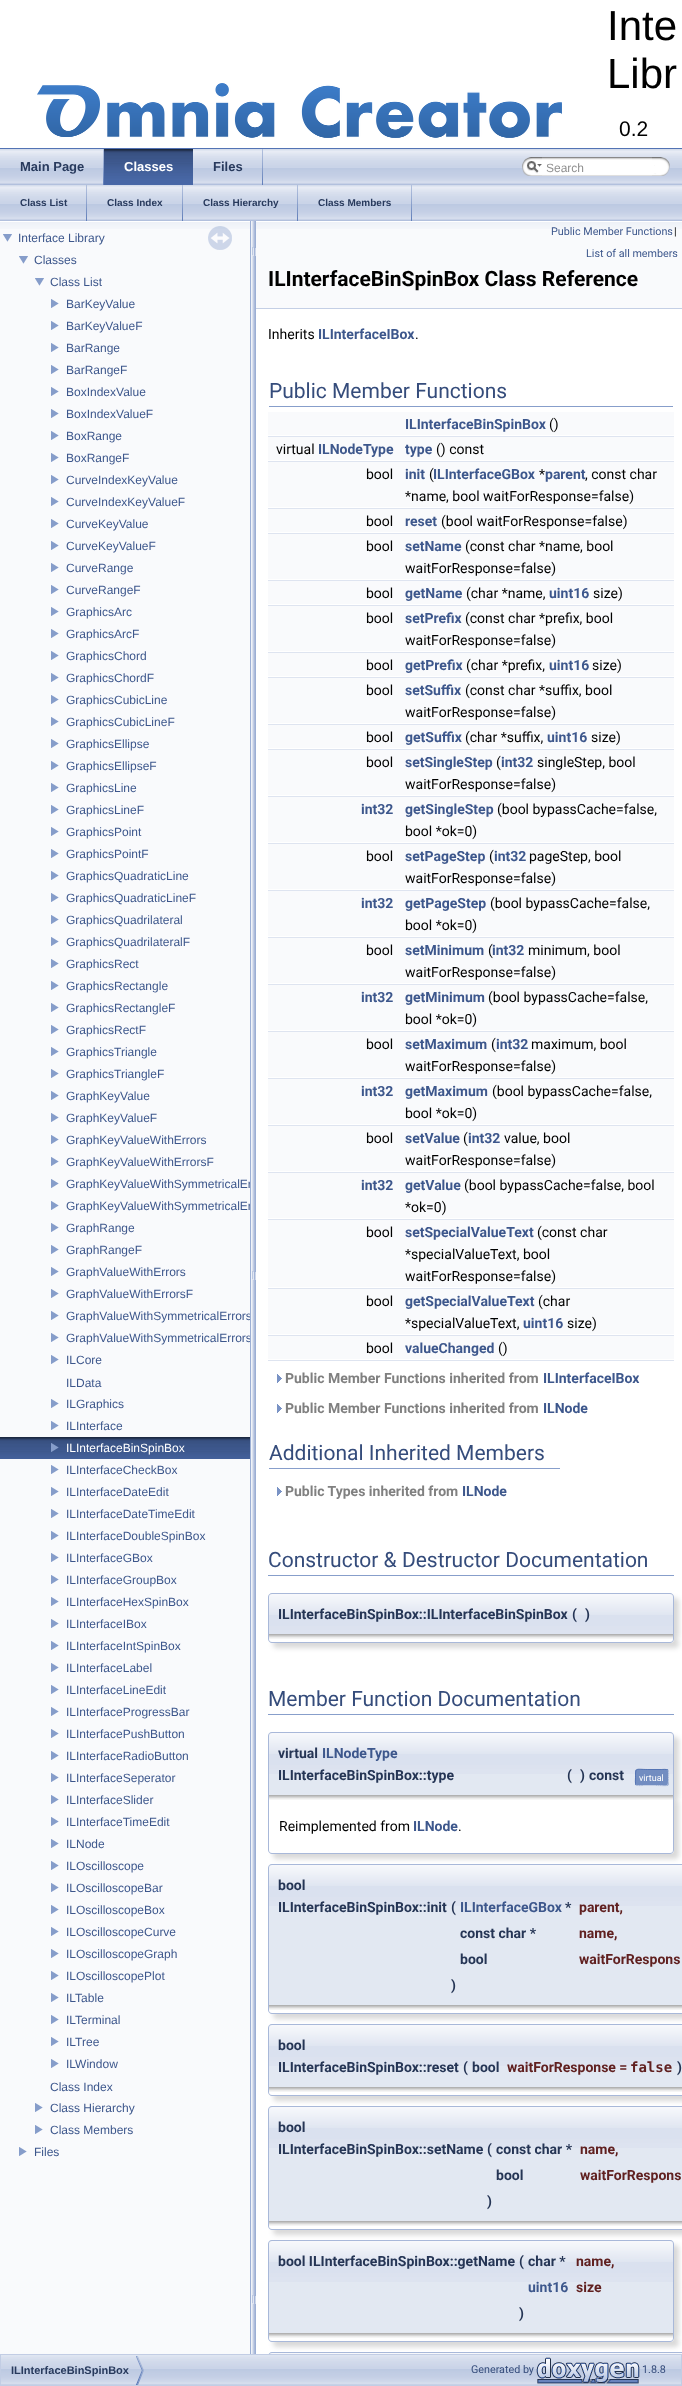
async function draw(canvas) {
	canvas.width = 682;
	canvas.height = 2386;
	const c = canvas.getContext('2d');
	c.miterLimit = 4;
	c.fontKerning = 'normal';
	async function loadImage(src) {
		const img = new Image();
		img.src = src;
		await img.decode();
		return img;
	}

	c.fillStyle = '#fff';
	c.fillRect(0, 0, 682, 2386);
	c.fillStyle = '#5373b4';
	c.fillRect(0, 148, 682, 1);
	c.drawImage(await loadImage('img1.png'), 37, 83, 525, 55);
	c.font = '42px Liberation Sans';
	c.fillStyle = '#000';
	c.fillText('Inte', 607, 40);
	c.fillText('Libr', 607, 88);
	c.font = '21px Liberation Sans';
	c.fillText('0.2', 619, 136);
	c.drawImage(await loadImage('img2.png'), 0, 149, 682, 36);
	c.drawImage(await loadImage('img3.png'), 103, 149, 1, 36);
	c.font = 'bold 13px Liberation Sans';
	c.fillStyle = '#283a5d';
	c.fillText('Main Page', 20, 171);
	c.drawImage(await loadImage('img4.png'), 104, 149, 89, 36);
	c.fillStyle = '#fff';
	c.fillText('Classes', 124, 171);
	c.drawImage(await loadImage('img3.png'), 262, 149, 1, 36);
	c.fillStyle = '#283a5d';
	c.fillText('Files', 213, 171);
	c.drawImage(await loadImage('img5.png'), 522, 157, 20, 19);
	c.drawImage(await loadImage('img6.png'), 527, 161, 15, 12);
	c.drawImage(await loadImage('img7.png'), 542, 157, 110, 19);
	c.font = '12px Liberation Sans';
	c.fillStyle = '#909090';
	c.fillText('Search', 546, 172);
	c.drawImage(await loadImage('img8.png'), 652, 157, 18, 19);
	c.drawImage(await loadImage('img2.png'), 0, 185, 682, 36);
	c.drawImage(await loadImage('img3.png'), 86, 185, 1, 36);
	c.font = 'bold 10px Liberation Sans';
	c.fillStyle = '#283a5d';
	c.fillText('Class List', 20, 206);
	c.drawImage(await loadImage('img3.png'), 182, 185, 1, 36);
	c.fillText('Class Index', 107, 206);
	c.drawImage(await loadImage('img3.png'), 297, 185, 1, 36);
	c.fillText('Class Hierarchy', 203, 206);
	c.drawImage(await loadImage('img3.png'), 411, 185, 1, 36);
	c.fillText('Class Members', 318, 206);
	c.fillStyle = '#f9fafc';
	c.fillRect(0, 229, 250, 2125);
	c.drawImage(await loadImage('img9.png'), 0, 221, 250, 8);
	c.drawImage(await loadImage('img10.png'), 208, 226, 24, 24);
	c.drawImage(await loadImage('img11.png'), 3, 234, 9, 8);
	c.font = '12px Liberation Sans';
	c.fillStyle = '#3d578c';
	c.fillText('Interface Library', 18, 242);
	c.drawImage(await loadImage('img11.png'), 19, 256, 9, 8);
	c.fillText('Classes', 34, 264);
	c.drawImage(await loadImage('img11.png'), 35, 278, 9, 8);
	c.fillText('Class List', 50, 286);
	c.drawImage(await loadImage('img12.png'), 51, 299, 8, 9);
	c.fillText('BarKeyValue', 66, 308);
	c.drawImage(await loadImage('img12.png'), 51, 321, 8, 9);
	c.fillText('BarKeyValueF', 66, 330);
	c.drawImage(await loadImage('img12.png'), 51, 343, 8, 9);
	c.fillText('BarRange', 66, 352);
	c.drawImage(await loadImage('img12.png'), 51, 365, 8, 9);
	c.fillText('BarRangeF', 66, 374);
	c.drawImage(await loadImage('img12.png'), 51, 387, 8, 9);
	c.fillText('BoxIndexValue', 66, 396);
	c.drawImage(await loadImage('img12.png'), 51, 409, 8, 9);
	c.fillText('BoxIndexValueF', 66, 418);
	c.drawImage(await loadImage('img12.png'), 51, 431, 8, 9);
	c.fillText('BoxRange', 66, 440);
	c.drawImage(await loadImage('img12.png'), 51, 453, 8, 9);
	c.fillText('BoxRangeF', 66, 462);
	c.drawImage(await loadImage('img12.png'), 51, 475, 8, 9);
	c.fillText('CurveIndexKeyValue', 66, 484);
	c.drawImage(await loadImage('img12.png'), 51, 497, 8, 9);
	c.fillText('CurveIndexKeyValueF', 66, 506);
	c.drawImage(await loadImage('img12.png'), 51, 519, 8, 9);
	c.fillText('CurveKeyValue', 66, 528);
	c.drawImage(await loadImage('img12.png'), 51, 541, 8, 9);
	c.fillText('CurveKeyValueF', 66, 550);
	c.drawImage(await loadImage('img12.png'), 51, 563, 8, 9);
	c.fillText('CurveRange', 66, 572);
	c.drawImage(await loadImage('img12.png'), 51, 585, 8, 9);
	c.fillText('CurveRangeF', 66, 594);
	c.drawImage(await loadImage('img12.png'), 51, 607, 8, 9);
	c.fillText('GraphicsArc', 66, 616);
	c.drawImage(await loadImage('img12.png'), 51, 629, 8, 9);
	c.fillText('GraphicsArcF', 66, 638);
	c.drawImage(await loadImage('img12.png'), 51, 651, 8, 9);
	c.fillText('GraphicsChord', 66, 660);
	c.drawImage(await loadImage('img12.png'), 51, 673, 8, 9);
	c.fillText('GraphicsChordF', 66, 682);
	c.drawImage(await loadImage('img12.png'), 51, 695, 8, 9);
	c.fillText('GraphicsCubicLine', 66, 704);
	c.drawImage(await loadImage('img12.png'), 51, 717, 8, 9);
	c.fillText('GraphicsCubicLineF', 66, 726);
	c.drawImage(await loadImage('img12.png'), 51, 739, 8, 9);
	c.fillText('GraphicsEllipse', 66, 748);
	c.drawImage(await loadImage('img12.png'), 51, 761, 8, 9);
	c.fillText('GraphicsEllipseF', 66, 770);
	c.drawImage(await loadImage('img12.png'), 51, 783, 8, 9);
	c.fillText('GraphicsLine', 66, 792);
	c.drawImage(await loadImage('img12.png'), 51, 805, 8, 9);
	c.fillText('GraphicsLineF', 66, 814);
	c.drawImage(await loadImage('img12.png'), 51, 827, 8, 9);
	c.fillText('GraphicsPoint', 66, 836);
	c.drawImage(await loadImage('img12.png'), 51, 849, 8, 9);
	c.fillText('GraphicsPointF', 66, 858);
	c.drawImage(await loadImage('img12.png'), 51, 871, 8, 9);
	c.fillText('GraphicsQuadraticLine', 66, 880);
	c.drawImage(await loadImage('img12.png'), 51, 893, 8, 9);
	c.fillText('GraphicsQuadraticLineF', 66, 902);
	c.drawImage(await loadImage('img12.png'), 51, 915, 8, 9);
	c.fillText('GraphicsQuadrilateral', 66, 924);
	c.drawImage(await loadImage('img12.png'), 51, 937, 8, 9);
	c.fillText('GraphicsQuadrilateralF', 66, 946);
	c.drawImage(await loadImage('img12.png'), 51, 959, 8, 9);
	c.fillText('GraphicsRect', 66, 968);
	c.drawImage(await loadImage('img12.png'), 51, 981, 8, 9);
	c.fillText('GraphicsRectangle', 66, 990);
	c.drawImage(await loadImage('img12.png'), 51, 1003, 8, 9);
	c.fillText('GraphicsRectangleF', 66, 1012);
	c.drawImage(await loadImage('img12.png'), 51, 1025, 8, 9);
	c.fillText('GraphicsRectF', 66, 1034);
	c.drawImage(await loadImage('img12.png'), 51, 1047, 8, 9);
	c.fillText('GraphicsTriangle', 66, 1056);
	c.drawImage(await loadImage('img12.png'), 51, 1069, 8, 9);
	c.fillText('GraphicsTriangleF', 66, 1078);
	c.drawImage(await loadImage('img12.png'), 51, 1091, 8, 9);
	c.fillText('GraphKeyValue', 66, 1100);
	c.drawImage(await loadImage('img12.png'), 51, 1113, 8, 9);
	c.fillText('GraphKeyValueF', 66, 1122);
	c.drawImage(await loadImage('img12.png'), 51, 1135, 8, 9);
	c.fillText('GraphKeyValueWithErrors', 66, 1144);
	c.drawImage(await loadImage('img12.png'), 51, 1157, 8, 9);
	c.fillText('GraphKeyValueWithErrorsF', 66, 1166);
	c.drawImage(await loadImage('img12.png'), 51, 1179, 8, 9);
	c.fillText('GraphKeyValueWithSymmetricalEr', 66, 1188);
	c.drawImage(await loadImage('img12.png'), 51, 1201, 8, 9);
	c.fillText('GraphKeyValueWithSymmetricalEr', 66, 1210);
	c.drawImage(await loadImage('img12.png'), 51, 1223, 8, 9);
	c.fillText('GraphRange', 66, 1232);
	c.drawImage(await loadImage('img12.png'), 51, 1245, 8, 9);
	c.fillText('GraphRangeF', 66, 1254);
	c.drawImage(await loadImage('img12.png'), 51, 1267, 8, 9);
	c.fillText('GraphValueWithErrors', 66, 1276);
	c.drawImage(await loadImage('img12.png'), 51, 1289, 8, 9);
	c.fillText('GraphValueWithErrorsF', 66, 1298);
	c.drawImage(await loadImage('img12.png'), 51, 1311, 8, 9);
	c.fillText('GraphValueWithSymmetricalErrors', 66, 1320);
	c.drawImage(await loadImage('img12.png'), 51, 1333, 8, 9);
	c.fillText('GraphValueWithSymmetricalErrors', 66, 1342);
	c.drawImage(await loadImage('img12.png'), 51, 1355, 8, 9);
	c.fillText('ILCore', 66, 1364);
	c.fillText('ILData', 66, 1387);
	c.drawImage(await loadImage('img12.png'), 51, 1399, 8, 9);
	c.fillText('ILGraphics', 66, 1408);
	c.drawImage(await loadImage('img12.png'), 51, 1421, 8, 9);
	c.fillText('ILInterface', 66, 1430);
	c.drawImage(await loadImage('img13.png'), 0, 1437, 250, 22);
	c.drawImage(await loadImage('img14.png'), 51, 1443, 8, 9);
	c.fillStyle = '#fff';
	c.fillText('ILInterfaceBinSpinBox', 66, 1452);
	c.drawImage(await loadImage('img12.png'), 51, 1465, 8, 9);
	c.fillStyle = '#3d578c';
	c.fillText('ILInterfaceCheckBox', 66, 1474);
	c.drawImage(await loadImage('img12.png'), 51, 1487, 8, 9);
	c.fillText('ILInterfaceDateEdit', 66, 1496);
	c.drawImage(await loadImage('img12.png'), 51, 1509, 8, 9);
	c.fillText('ILInterfaceDateTimeEdit', 66, 1518);
	c.drawImage(await loadImage('img12.png'), 51, 1531, 8, 9);
	c.fillText('ILInterfaceDoubleSpinBox', 66, 1540);
	c.drawImage(await loadImage('img12.png'), 51, 1553, 8, 9);
	c.fillText('ILInterfaceGBox', 66, 1562);
	c.drawImage(await loadImage('img12.png'), 51, 1575, 8, 9);
	c.fillText('ILInterfaceGroupBox', 66, 1584);
	c.drawImage(await loadImage('img12.png'), 51, 1597, 8, 9);
	c.fillText('ILInterfaceHexSpinBox', 66, 1606);
	c.drawImage(await loadImage('img12.png'), 51, 1619, 8, 9);
	c.fillText('ILInterfaceIBox', 66, 1628);
	c.drawImage(await loadImage('img12.png'), 51, 1641, 8, 9);
	c.fillText('ILInterfaceIntSpinBox', 66, 1650);
	c.drawImage(await loadImage('img12.png'), 51, 1663, 8, 9);
	c.fillText('ILInterfaceLabel', 66, 1672);
	c.drawImage(await loadImage('img12.png'), 51, 1685, 8, 9);
	c.fillText('ILInterfaceLineEdit', 66, 1694);
	c.drawImage(await loadImage('img12.png'), 51, 1707, 8, 9);
	c.fillText('ILInterfaceProgressBar', 66, 1716);
	c.drawImage(await loadImage('img12.png'), 51, 1729, 8, 9);
	c.fillText('ILInterfacePushButton', 66, 1738);
	c.drawImage(await loadImage('img12.png'), 51, 1751, 8, 9);
	c.fillText('ILInterfaceRadioButton', 66, 1760);
	c.drawImage(await loadImage('img12.png'), 51, 1773, 8, 9);
	c.fillText('ILInterfaceSeperator', 66, 1782);
	c.drawImage(await loadImage('img12.png'), 51, 1795, 8, 9);
	c.fillText('ILInterfaceSlider', 66, 1804);
	c.drawImage(await loadImage('img12.png'), 51, 1817, 8, 9);
	c.fillText('ILInterfaceTimeEdit', 66, 1826);
	c.drawImage(await loadImage('img12.png'), 51, 1839, 8, 9);
	c.fillText('ILNode', 66, 1848);
	c.drawImage(await loadImage('img12.png'), 51, 1861, 8, 9);
	c.fillText('ILOscilloscope', 66, 1870);
	c.drawImage(await loadImage('img12.png'), 51, 1883, 8, 9);
	c.fillText('ILOscilloscopeBar', 66, 1892);
	c.drawImage(await loadImage('img12.png'), 51, 1905, 8, 9);
	c.fillText('ILOscilloscopeBox', 66, 1914);
	c.drawImage(await loadImage('img12.png'), 51, 1927, 8, 9);
	c.fillText('ILOscilloscopeCurve', 66, 1936);
	c.drawImage(await loadImage('img12.png'), 51, 1949, 8, 9);
	c.fillText('ILOscilloscopeGraph', 66, 1958);
	c.drawImage(await loadImage('img12.png'), 51, 1971, 8, 9);
	c.fillText('ILOscilloscopePlot', 66, 1980);
	c.drawImage(await loadImage('img12.png'), 51, 1993, 8, 9);
	c.fillText('ILTable', 66, 2002);
	c.drawImage(await loadImage('img12.png'), 51, 2015, 8, 9);
	c.fillText('ILTerminal', 66, 2024);
	c.drawImage(await loadImage('img12.png'), 51, 2037, 8, 9);
	c.fillText('ILTree', 66, 2046);
	c.drawImage(await loadImage('img12.png'), 51, 2059, 8, 9);
	c.fillText('ILWindow', 66, 2068);
	c.fillText('Class Index', 50, 2091);
	c.drawImage(await loadImage('img12.png'), 35, 2103, 8, 9);
	c.fillText('Class Hierarchy', 50, 2112);
	c.drawImage(await loadImage('img12.png'), 35, 2125, 8, 9);
	c.fillText('Class Members', 50, 2134);
	c.drawImage(await loadImage('img12.png'), 19, 2147, 8, 9);
	c.fillText('Files', 34, 2156);
	c.drawImage(await loadImage('img15.png'), 250, 221, 6, 2133);
	c.fillStyle = '#f9fafc';
	c.fillRect(256, 229, 426, 79);
	c.drawImage(await loadImage('img16.png'), 256, 221, 426, 8);
	c.fillStyle = '#c4cfe5';
	c.fillRect(256, 308, 426, 1);
	c.font = '10.75px Roboto';
	c.fillStyle = '#3d578c';
	c.fillText('Public Member Functions', 551, 235);
	c.fillStyle = '#000';
	c.fillText('|', 674, 235);
	c.fillStyle = '#3d578c';
	c.fillText('List of all members', 586, 257);
	c.font = 'bold 21px Roboto';
	c.fillStyle = '#000';
	c.fillText('ILInterfaceBinSpinBox Class Reference', 268, 286);
	c.font = '14px Roboto';
	c.fillText('Inherits', 268, 339);
	c.font = 'bold 14px Roboto';
	c.fillStyle = '#3d578c';
	c.fillText('ILInterfaceIBox', 318, 339);
	c.font = '14px Roboto';
	c.fillStyle = '#000';
	c.fillText('.', 415, 339);
	c.fillStyle = '#879ecb';
	c.fillRect(269, 406, 404, 1);
	c.font = '21px Roboto';
	c.fillStyle = '#354c7b';
	c.fillText('Public Member Functions', 269, 398);
	c.fillStyle = '#f9fafc';
	c.fillRect(268, 412, 406, 23);
	c.font = 'bold 14px Roboto';
	c.fillStyle = '#3d578c';
	c.fillText('ILInterfaceBinSpinBox', 405, 429);
	c.font = '14px Roboto';
	c.fillStyle = '#000';
	c.fillText('()', 549, 429);
	c.fillStyle = '#dee4f0';
	c.fillRect(268, 436, 406, 1);
	c.fillStyle = '#f9fafc';
	c.fillRect(268, 437, 406, 23);
	c.fillStyle = '#000';
	c.fillText('virtual', 276, 454);
	c.font = 'bold 14px Roboto';
	c.fillStyle = '#3d578c';
	c.fillText('ILNodeType', 318, 454);
	c.fillText('type', 405, 454);
	c.font = '14px Roboto';
	c.fillStyle = '#000';
	c.fillText('() const', 436, 454);
	c.fillStyle = '#dee4f0';
	c.fillRect(268, 461, 406, 1);
	c.fillStyle = '#f9fafc';
	c.fillRect(268, 462, 406, 45);
	c.fillStyle = '#000';
	c.fillText('bool', 366, 479);
	c.font = 'bold 14px Roboto';
	c.fillStyle = '#3d578c';
	c.fillText('init', 405, 479);
	c.font = '14px Roboto';
	c.fillStyle = '#000';
	c.fillText('(', 429, 479);
	c.font = 'bold 14px Roboto';
	c.fillStyle = '#3d578c';
	c.fillText('ILInterfaceGBox', 433, 479);
	c.font = '14px Roboto';
	c.fillStyle = '#000';
	c.fillText('*', 539, 479);
	c.font = 'bold 14px Roboto';
	c.fillStyle = '#3d578c';
	c.fillText('parent', 545, 479);
	c.font = '14px Roboto';
	c.fillStyle = '#000';
	c.fillText(', const char', 585, 479);
	c.fillText('*name, bool waitForResponse=false)', 405, 501);
	c.fillStyle = '#dee4f0';
	c.fillRect(268, 508, 406, 1);
	c.fillStyle = '#f9fafc';
	c.fillRect(268, 509, 406, 23);
	c.fillStyle = '#000';
	c.fillText('bool', 366, 526);
	c.font = 'bold 14px Roboto';
	c.fillStyle = '#3d578c';
	c.fillText('reset', 405, 526);
	c.font = '14px Roboto';
	c.fillStyle = '#000';
	c.fillText('(bool waitForResponse=false)', 441, 526);
	c.fillStyle = '#dee4f0';
	c.fillRect(268, 533, 406, 1);
	c.fillStyle = '#f9fafc';
	c.fillRect(268, 534, 406, 45);
	c.fillStyle = '#000';
	c.fillText('bool', 366, 551);
	c.font = 'bold 14px Roboto';
	c.fillStyle = '#3d578c';
	c.fillText('setName', 405, 551);
	c.font = '14px Roboto';
	c.fillStyle = '#000';
	c.fillText('(const char *name, bool', 465, 551);
	c.fillText('waitForResponse=false)', 405, 573);
	c.fillStyle = '#dee4f0';
	c.fillRect(268, 580, 406, 1);
	c.fillStyle = '#f9fafc';
	c.fillRect(268, 581, 406, 23);
	c.fillStyle = '#000';
	c.fillText('bool', 366, 598);
	c.font = 'bold 14px Roboto';
	c.fillStyle = '#3d578c';
	c.fillText('getName', 405, 598);
	c.font = '14px Roboto';
	c.fillStyle = '#000';
	c.fillText('(char *name,', 466, 598);
	c.font = 'bold 14px Roboto';
	c.fillStyle = '#3d578c';
	c.fillText('uint16', 549, 598);
	c.font = '14px Roboto';
	c.fillStyle = '#000';
	c.fillText('size)', 593, 598);
	c.fillStyle = '#dee4f0';
	c.fillRect(268, 605, 406, 1);
	c.fillStyle = '#f9fafc';
	c.fillRect(268, 606, 406, 45);
	c.fillStyle = '#000';
	c.fillText('bool', 366, 623);
	c.font = 'bold 14px Roboto';
	c.fillStyle = '#3d578c';
	c.fillText('setPrefix', 405, 623);
	c.font = '14px Roboto';
	c.fillStyle = '#000';
	c.fillText('(const char *prefix, bool', 465, 623);
	c.fillText('waitForResponse=false)', 405, 645);
	c.fillStyle = '#dee4f0';
	c.fillRect(268, 652, 406, 1);
	c.fillStyle = '#f9fafc';
	c.fillRect(268, 653, 406, 23);
	c.fillStyle = '#000';
	c.fillText('bool', 366, 670);
	c.font = 'bold 14px Roboto';
	c.fillStyle = '#3d578c';
	c.fillText('getPrefix', 405, 670);
	c.font = '14px Roboto';
	c.fillStyle = '#000';
	c.fillText('(char *prefix,', 466, 670);
	c.font = 'bold 14px Roboto';
	c.fillStyle = '#3d578c';
	c.fillText('uint16', 549, 670);
	c.font = '14px Roboto';
	c.fillStyle = '#000';
	c.fillText('size)', 592, 670);
	c.fillStyle = '#dee4f0';
	c.fillRect(268, 677, 406, 1);
	c.fillStyle = '#f9fafc';
	c.fillRect(268, 678, 406, 45);
	c.fillStyle = '#000';
	c.fillText('bool', 366, 695);
	c.font = 'bold 14px Roboto';
	c.fillStyle = '#3d578c';
	c.fillText('setSuffix', 405, 695);
	c.font = '14px Roboto';
	c.fillStyle = '#000';
	c.fillText('(const char *suffix, bool', 465, 695);
	c.fillText('waitForResponse=false)', 405, 717);
	c.fillStyle = '#dee4f0';
	c.fillRect(268, 724, 406, 1);
	c.fillStyle = '#f9fafc';
	c.fillRect(268, 725, 406, 23);
	c.fillStyle = '#000';
	c.fillText('bool', 366, 742);
	c.font = 'bold 14px Roboto';
	c.fillStyle = '#3d578c';
	c.fillText('getSuffix', 405, 742);
	c.font = '14px Roboto';
	c.fillStyle = '#000';
	c.fillText('(char *suffix,', 465, 742);
	c.font = 'bold 14px Roboto';
	c.fillStyle = '#3d578c';
	c.fillText('uint16', 547, 742);
	c.font = '14px Roboto';
	c.fillStyle = '#000';
	c.fillText('size)', 591, 742);
	c.fillStyle = '#dee4f0';
	c.fillRect(268, 749, 406, 1);
	c.fillStyle = '#f9fafc';
	c.fillRect(268, 750, 406, 45);
	c.fillStyle = '#000';
	c.fillText('bool', 366, 767);
	c.font = 'bold 14px Roboto';
	c.fillStyle = '#3d578c';
	c.fillText('setSingleStep', 405, 767);
	c.font = '14px Roboto';
	c.fillStyle = '#000';
	c.fillText('(', 496, 767);
	c.font = 'bold 14px Roboto';
	c.fillStyle = '#3d578c';
	c.fillText('int32', 501, 767);
	c.font = '14px Roboto';
	c.fillStyle = '#000';
	c.fillText('singleStep, bool', 537, 767);
	c.fillText('waitForResponse=false)', 405, 789);
	c.fillStyle = '#dee4f0';
	c.fillRect(268, 796, 406, 1);
	c.fillStyle = '#f9fafc';
	c.fillRect(268, 797, 406, 45);
	c.font = 'bold 14px Roboto';
	c.fillStyle = '#3d578c';
	c.fillText('int32', 361, 814);
	c.fillText('getSingleStep', 405, 814);
	c.font = '14px Roboto';
	c.fillStyle = '#000';
	c.fillText('(bool bypassCache=false,', 497, 814);
	c.fillText('bool *ok=0)', 405, 836);
	c.fillStyle = '#dee4f0';
	c.fillRect(268, 843, 406, 1);
	c.fillStyle = '#f9fafc';
	c.fillRect(268, 844, 406, 45);
	c.fillStyle = '#000';
	c.fillText('bool', 366, 861);
	c.font = 'bold 14px Roboto';
	c.fillStyle = '#3d578c';
	c.fillText('setPageStep', 405, 861);
	c.font = '14px Roboto';
	c.fillStyle = '#000';
	c.fillText('(', 489, 861);
	c.font = 'bold 14px Roboto';
	c.fillStyle = '#3d578c';
	c.fillText('int32', 494, 861);
	c.font = '14px Roboto';
	c.fillStyle = '#000';
	c.fillText('pageStep, bool', 529, 861);
	c.fillText('waitForResponse=false)', 405, 883);
	c.fillStyle = '#dee4f0';
	c.fillRect(268, 890, 406, 1);
	c.fillStyle = '#f9fafc';
	c.fillRect(268, 891, 406, 45);
	c.font = 'bold 14px Roboto';
	c.fillStyle = '#3d578c';
	c.fillText('int32', 361, 908);
	c.fillText('getPageStep', 405, 908);
	c.font = '14px Roboto';
	c.fillStyle = '#000';
	c.fillText('(bool bypassCache=false,', 490, 908);
	c.fillText('bool *ok=0)', 405, 930);
	c.fillStyle = '#dee4f0';
	c.fillRect(268, 937, 406, 1);
	c.fillStyle = '#f9fafc';
	c.fillRect(268, 938, 406, 45);
	c.fillStyle = '#000';
	c.fillText('bool', 366, 955);
	c.font = 'bold 14px Roboto';
	c.fillStyle = '#3d578c';
	c.fillText('setMinimum', 405, 955);
	c.font = '14px Roboto';
	c.fillStyle = '#000';
	c.fillText('(', 488, 955);
	c.font = 'bold 14px Roboto';
	c.fillStyle = '#3d578c';
	c.fillText('int32', 492, 955);
	c.font = '14px Roboto';
	c.fillStyle = '#000';
	c.fillText('minimum, bool', 528, 955);
	c.fillText('waitForResponse=false)', 405, 977);
	c.fillStyle = '#dee4f0';
	c.fillRect(268, 984, 406, 1);
	c.fillStyle = '#f9fafc';
	c.fillRect(268, 985, 406, 45);
	c.font = 'bold 14px Roboto';
	c.fillStyle = '#3d578c';
	c.fillText('int32', 361, 1002);
	c.fillText('getMinimum', 405, 1002);
	c.font = '14px Roboto';
	c.fillStyle = '#000';
	c.fillText('(bool bypassCache=false,', 488, 1002);
	c.fillText('bool *ok=0)', 405, 1024);
	c.fillStyle = '#dee4f0';
	c.fillRect(268, 1031, 406, 1);
	c.fillStyle = '#f9fafc';
	c.fillRect(268, 1032, 406, 45);
	c.fillStyle = '#000';
	c.fillText('bool', 366, 1049);
	c.font = 'bold 14px Roboto';
	c.fillStyle = '#3d578c';
	c.fillText('setMaximum', 405, 1049);
	c.font = '14px Roboto';
	c.fillStyle = '#000';
	c.fillText('(', 491, 1049);
	c.font = 'bold 14px Roboto';
	c.fillStyle = '#3d578c';
	c.fillText('int32', 496, 1049);
	c.font = '14px Roboto';
	c.fillStyle = '#000';
	c.fillText('maximum, bool', 531, 1049);
	c.fillText('waitForResponse=false)', 405, 1071);
	c.fillStyle = '#dee4f0';
	c.fillRect(268, 1078, 406, 1);
	c.fillStyle = '#f9fafc';
	c.fillRect(268, 1079, 406, 45);
	c.font = 'bold 14px Roboto';
	c.fillStyle = '#3d578c';
	c.fillText('int32', 361, 1096);
	c.fillText('getMaximum', 405, 1096);
	c.font = '14px Roboto';
	c.fillStyle = '#000';
	c.fillText('(bool bypassCache=false,', 492, 1096);
	c.fillText('bool *ok=0)', 405, 1118);
	c.fillStyle = '#dee4f0';
	c.fillRect(268, 1125, 406, 1);
	c.fillStyle = '#f9fafc';
	c.fillRect(268, 1126, 406, 45);
	c.fillStyle = '#000';
	c.fillText('bool', 366, 1143);
	c.font = 'bold 14px Roboto';
	c.fillStyle = '#3d578c';
	c.fillText('setValue', 405, 1143);
	c.font = '14px Roboto';
	c.fillStyle = '#000';
	c.fillText('(', 463, 1143);
	c.font = 'bold 14px Roboto';
	c.fillStyle = '#3d578c';
	c.fillText('int32', 468, 1143);
	c.font = '14px Roboto';
	c.fillStyle = '#000';
	c.fillText('value, bool', 504, 1143);
	c.fillText('waitForResponse=false)', 405, 1165);
	c.fillStyle = '#dee4f0';
	c.fillRect(268, 1172, 406, 1);
	c.fillStyle = '#f9fafc';
	c.fillRect(268, 1173, 406, 45);
	c.font = 'bold 14px Roboto';
	c.fillStyle = '#3d578c';
	c.fillText('int32', 361, 1190);
	c.fillText('getValue', 405, 1190);
	c.font = '14px Roboto';
	c.fillStyle = '#000';
	c.fillText('(bool bypassCache=false, bool', 464, 1190);
	c.fillText('*ok=0)', 405, 1212);
	c.fillStyle = '#dee4f0';
	c.fillRect(268, 1219, 406, 1);
	c.fillStyle = '#f9fafc';
	c.fillRect(268, 1220, 406, 67);
	c.fillStyle = '#000';
	c.fillText('bool', 366, 1237);
	c.font = 'bold 14px Roboto';
	c.fillStyle = '#3d578c';
	c.fillText('setSpecialValueText', 405, 1237);
	c.font = '14px Roboto';
	c.fillStyle = '#000';
	for (const [text, x, y] of [
		['(const char', 537, 1237],
		['*specialValueText, bool', 405, 1259],
		['waitForResponse=false)', 405, 1281],
	]) {
		c.fillText(text, x, y);
	}
	c.fillStyle = '#dee4f0';
	c.fillRect(268, 1288, 406, 1);
	c.fillStyle = '#f9fafc';
	c.fillRect(268, 1289, 406, 45);
	c.fillStyle = '#000';
	c.fillText('bool', 366, 1306);
	c.font = 'bold 14px Roboto';
	c.fillStyle = '#3d578c';
	c.fillText('getSpecialValueText', 405, 1306);
	c.font = '14px Roboto';
	c.fillStyle = '#000';
	c.fillText('(char', 538, 1306);
	c.fillText('*specialValueText,', 405, 1328);
	c.font = 'bold 14px Roboto';
	c.fillStyle = '#3d578c';
	c.fillText('uint16', 523, 1328);
	c.font = '14px Roboto';
	c.fillStyle = '#000';
	c.fillText('size)', 567, 1328);
	c.fillStyle = '#dee4f0';
	c.fillRect(268, 1335, 406, 1);
	c.fillStyle = '#f9fafc';
	c.fillRect(268, 1336, 406, 23);
	c.fillStyle = '#000';
	c.fillText('bool', 366, 1353);
	c.font = 'bold 14px Roboto';
	c.fillStyle = '#3d578c';
	c.fillText('valueChanged', 405, 1353);
	c.font = '14px Roboto';
	c.fillStyle = '#000';
	c.fillText('()', 498, 1353);
	c.fillStyle = '#dee4f0';
	c.fillRect(268, 1360, 406, 1);
	c.drawImage(await loadImage('img17.png'), 277, 1374, 5, 9);
	c.font = 'bold 14px Roboto';
	c.fillStyle = '#808080';
	c.fillText('Public Member Functions inherited from', 285, 1383);
	c.fillStyle = '#3d578c';
	c.fillText('ILInterfaceIBox', 543, 1383);
	c.drawImage(await loadImage('img17.png'), 277, 1404, 5, 9);
	c.fillStyle = '#808080';
	c.fillText('Public Member Functions inherited from', 285, 1413);
	c.fillStyle = '#3d578c';
	c.fillText('ILNode', 543, 1413);
	c.fillStyle = '#879ecb';
	c.fillRect(269, 1468, 291, 1);
	c.font = '21px Roboto';
	c.fillStyle = '#354c7b';
	c.fillText('Additional Inherited Members', 269, 1460);
	c.drawImage(await loadImage('img17.png'), 277, 1487, 5, 9);
	c.font = 'bold 14px Roboto';
	c.fillStyle = '#808080';
	c.fillText('Public Types inherited from', 285, 1496);
	c.fillStyle = '#3d578c';
	c.fillText('ILNode', 462, 1496);
	c.fillStyle = '#879ecb';
	c.fillRect(268, 1575, 406, 1);
	c.font = '21px Roboto';
	c.fillStyle = '#354c7b';
	c.fillText('Constructor & Destructor Documentation', 268, 1567);
	c.fillStyle = '#00000026';
	c.filter = 'blur(2.5px)';
	c.beginPath();
	c.roundRect(273, 1598, 406, 41, 4);
	c.fill();
	c.filter = 'none';
	c.drawImage(await loadImage('img18.png'), 268, 1594, 406, 40);
	c.fillStyle = '#a8b8d9';
	c.beginPath();
	c.moveTo(272, 1593);
	c.lineTo(670, 1593);
	c.bezierCurveTo(672, 1593, 674, 1595, 674, 1597);
	c.lineTo(674, 1634);
	c.lineTo(268, 1634);
	c.lineTo(268, 1597);
	c.bezierCurveTo(268, 1595, 270, 1593, 272, 1593);
	c.closePath();
	c.moveTo(272, 1594);
	c.lineTo(670, 1594);
	c.bezierCurveTo(672, 1594, 673, 1595, 673, 1597);
	c.lineTo(673, 1634);
	c.lineTo(269, 1634);
	c.lineTo(269, 1597);
	c.bezierCurveTo(269, 1595, 270, 1594, 272, 1594);
	c.closePath();
	c.fill('evenodd');
	c.font = 'bold 14px Roboto';
	c.fillStyle = '#253555';
	for (const [text, x, y] of [
		['ILInterfaceBinSpinBox::ILInterfaceBinSpinBox', 278, 1619],
		['(', 572, 1619],
		[')', 585, 1619],
	]) {
		c.fillText(text, x, y);
	}
	c.fillStyle = '#00000026';
	c.filter = 'blur(2.5px)';
	c.beginPath();
	c.roundRect(273, 1639, 406, 9, 4);
	c.fill();
	c.filter = 'none';
	c.fillStyle = '#fff';
	c.beginPath();
	c.roundRect(268, 1634, 406, 9, [0, 0, 4, 4]);
	c.fill();
	c.drawImage(await loadImage('img19.png'), 269, 1634, 404, 5);
	c.fillStyle = '#a8b8d9';
	c.beginPath();
	c.moveTo(268, 1634);
	c.lineTo(674, 1634);
	c.lineTo(674, 1639);
	c.bezierCurveTo(674, 1641, 672, 1643, 670, 1643);
	c.lineTo(272, 1643);
	c.bezierCurveTo(270, 1643, 268, 1641, 268, 1639);
	c.closePath();
	c.moveTo(269, 1634);
	c.lineTo(673, 1634);
	c.lineTo(673, 1639);
	c.bezierCurveTo(673, 1641, 672, 1642, 670, 1642);
	c.lineTo(272, 1642);
	c.bezierCurveTo(270, 1642, 269, 1641, 269, 1639);
	c.closePath();
	c.fill('evenodd');
	c.fillStyle = '#879ecb';
	c.fillRect(268, 1714, 406, 1);
	c.font = '21px Roboto';
	c.fillStyle = '#354c7b';
	c.fillText('Member Function Documentation', 268, 1706);
	c.fillStyle = '#00000026';
	c.filter = 'blur(2.5px)';
	c.beginPath();
	c.roundRect(273, 1737, 406, 63, 4);
	c.fill();
	c.filter = 'none';
	c.fillStyle = '#e2e8f2';
	c.beginPath();
	c.roundRect(268, 1732, 406, 63, [4, 4, 0, 0]);
	c.fill();
	c.drawImage(await loadImage('img20.png'), 268, 1733, 406, 41);
	c.fillStyle = '#a8b8d9';
	c.beginPath();
	c.moveTo(272, 1732);
	c.lineTo(670, 1732);
	c.bezierCurveTo(672, 1732, 674, 1734, 674, 1736);
	c.lineTo(674, 1795);
	c.lineTo(268, 1795);
	c.lineTo(268, 1736);
	c.bezierCurveTo(268, 1734, 270, 1732, 272, 1732);
	c.closePath();
	c.moveTo(272, 1733);
	c.lineTo(670, 1733);
	c.bezierCurveTo(672, 1733, 673, 1734, 673, 1736);
	c.lineTo(673, 1795);
	c.lineTo(269, 1795);
	c.lineTo(269, 1736);
	c.bezierCurveTo(269, 1734, 270, 1733, 272, 1733);
	c.closePath();
	c.fill('evenodd');
	c.font = 'bold 14px Roboto';
	c.fillStyle = '#253555';
	c.fillText('virtual', 278, 1758);
	c.fillStyle = '#3d578c';
	c.fillText('ILNodeType', 322, 1758);
	c.fillStyle = '#253555';
	for (const [text, x, y] of [
		['ILInterfaceBinSpinBox::type', 278, 1780],
		['(', 567, 1780],
		[')', 580, 1780],
		['const', 589, 1780],
	]) {
		c.fillText(text, x, y);
	}
	c.fillStyle = '#728dc1';
	c.beginPath();
	c.roundRect(635, 1769, 34, 17, 3);
	c.fill();
	c.beginPath();
	c.moveTo(668, 1770);
	c.bezierCurveTo(669, 1771.5, 668.5, 1776, 668.5, 1777.5);
	c.bezierCurveTo(668.5, 1788, 668.5, 1785.5, 656.5, 1785.5);
	c.lineTo(642.5, 1785.5);
	c.bezierCurveTo(641.5, 1785.5, 637.5, 1786, 636, 1785);
	c.strokeStyle = '#c4cfe5';
	c.stroke();
	c.beginPath();
	c.moveTo(636, 1785);
	c.bezierCurveTo(635, 1783.5, 635.5, 1779, 635.5, 1777.5);
	c.bezierCurveTo(635.5, 1767, 635.5, 1769.5, 647.5, 1769.5);
	c.lineTo(661.5, 1769.5);
	c.bezierCurveTo(662.5, 1769.5, 666.5, 1769, 668, 1770);
	c.strokeStyle = '#5373b4';
	c.stroke();
	c.font = '9px Roboto';
	c.fillStyle = '#fff';
	c.fillText('virtual', 639, 1781);
	c.fillStyle = '#00000026';
	c.filter = 'blur(2.5px)';
	c.beginPath();
	c.roundRect(273, 1800, 406, 59, 4);
	c.fill();
	c.filter = 'none';
	c.fillStyle = '#fff';
	c.beginPath();
	c.roundRect(268, 1795, 406, 59, [0, 0, 4, 4]);
	c.fill();
	c.drawImage(await loadImage('img19.png'), 269, 1795, 404, 5);
	c.fillStyle = '#a8b8d9';
	c.beginPath();
	c.moveTo(268, 1795);
	c.lineTo(674, 1795);
	c.lineTo(674, 1850);
	c.bezierCurveTo(674, 1852, 672, 1854, 670, 1854);
	c.lineTo(272, 1854);
	c.bezierCurveTo(270, 1854, 268, 1852, 268, 1850);
	c.closePath();
	c.moveTo(269, 1795);
	c.lineTo(673, 1795);
	c.lineTo(673, 1850);
	c.bezierCurveTo(673, 1852, 672, 1853, 670, 1853);
	c.lineTo(272, 1853);
	c.bezierCurveTo(270, 1853, 269, 1852, 269, 1850);
	c.closePath();
	c.fill('evenodd');
	c.font = '14px Roboto';
	c.fillStyle = '#000';
	c.fillText('Reimplemented from', 279, 1831);
	c.font = 'bold 14px Roboto';
	c.fillStyle = '#3d578c';
	c.fillText('ILNode', 413, 1831);
	c.font = '14px Roboto';
	c.fillStyle = '#000';
	c.fillText('.', 458, 1831);
	c.fillStyle = '#e2e8f2';
	c.beginPath();
	c.roundRect(268, 1864, 414, 141, [4, 0, 0, 0]);
	c.fill();
	c.drawImage(await loadImage('img21.png'), 268, 1865, 414, 41);
	c.fillStyle = '#a8b8d9';
	c.beginPath();
	c.moveTo(272, 1864);
	c.lineTo(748, 1864);
	c.bezierCurveTo(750, 1864, 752, 1866, 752, 1868);
	c.lineTo(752, 2005);
	c.lineTo(268, 2005);
	c.lineTo(268, 1868);
	c.bezierCurveTo(268, 1866, 270, 1864, 272, 1864);
	c.closePath();
	c.moveTo(272, 1865);
	c.lineTo(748, 1865);
	c.bezierCurveTo(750, 1865, 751, 1866, 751, 1868);
	c.lineTo(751, 2005);
	c.lineTo(269, 2005);
	c.lineTo(269, 1868);
	c.bezierCurveTo(269, 1866, 270, 1865, 272, 1865);
	c.closePath();
	c.fill('evenodd');
	c.font = 'bold 14px Roboto';
	c.fillStyle = '#253555';
	for (const [text, x, y] of [
		['bool', 278, 1890],
		['ILInterfaceBinSpinBox::init', 278, 1912],
		['(', 451, 1912],
	]) {
		c.fillText(text, x, y);
	}
	c.fillStyle = '#3d578c';
	c.fillText('ILInterfaceGBox', 460, 1912);
	c.fillStyle = '#253555';
	c.fillText('*', 565, 1912);
	c.fillStyle = '#602020';
	c.fillText('parent,', 579, 1912);
	c.fillStyle = '#253555';
	c.fillText('const char *', 460, 1938);
	c.fillStyle = '#602020';
	c.fillText('name,', 579, 1938);
	c.fillStyle = '#253555';
	c.fillText('bool', 460, 1964);
	c.fillStyle = '#602020';
	c.fillText('waitForRespons', 579, 1964);
	c.fillStyle = '#253555';
	c.fillText(')', 451, 1990);
	c.fillStyle = '#00000026';
	c.filter = 'blur(2.5px)';
	c.beginPath();
	c.roundRect(273, 2010, 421, 9, 4);
	c.fill();
	c.filter = 'none';
	c.fillStyle = '#fff';
	c.beginPath();
	c.roundRect(268, 2005, 414, 9, [0, 0, 0, 4]);
	c.fill();
	c.drawImage(await loadImage('img22.png'), 269, 2005, 413, 5);
	c.fillStyle = '#a8b8d9';
	c.beginPath();
	c.moveTo(268, 2005);
	c.lineTo(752, 2005);
	c.lineTo(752, 2010);
	c.bezierCurveTo(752, 2012, 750, 2014, 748, 2014);
	c.lineTo(272, 2014);
	c.bezierCurveTo(270, 2014, 268, 2012, 268, 2010);
	c.closePath();
	c.moveTo(269, 2005);
	c.lineTo(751, 2005);
	c.lineTo(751, 2010);
	c.bezierCurveTo(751, 2012, 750, 2013, 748, 2013);
	c.lineTo(272, 2013);
	c.bezierCurveTo(270, 2013, 269, 2012, 269, 2010);
	c.closePath();
	c.fill('evenodd');
	c.fillStyle = '#e2e8f2';
	c.beginPath();
	c.roundRect(268, 2024, 414, 63, [4, 0, 0, 0]);
	c.fill();
	c.drawImage(await loadImage('img21.png'), 268, 2025, 414, 41);
	c.fillStyle = '#a8b8d9';
	c.beginPath();
	c.moveTo(272, 2024);
	c.lineTo(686, 2024);
	c.bezierCurveTo(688, 2024, 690, 2026, 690, 2028);
	c.lineTo(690, 2087);
	c.lineTo(268, 2087);
	c.lineTo(268, 2028);
	c.bezierCurveTo(268, 2026, 270, 2024, 272, 2024);
	c.closePath();
	c.moveTo(272, 2025);
	c.lineTo(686, 2025);
	c.bezierCurveTo(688, 2025, 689, 2026, 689, 2028);
	c.lineTo(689, 2087);
	c.lineTo(269, 2087);
	c.lineTo(269, 2028);
	c.bezierCurveTo(269, 2026, 270, 2025, 272, 2025);
	c.closePath();
	c.fill('evenodd');
	c.fillStyle = '#253555';
	for (const [text, x, y] of [
		['bool', 278, 2050],
		['ILInterfaceBinSpinBox::reset', 278, 2072],
		['(', 463, 2072],
		['bool', 472, 2072],
	]) {
		c.fillText(text, x, y);
	}
	c.fillStyle = '#602020';
	c.fillText('waitForResponse =', 507, 2072);
	c.font = 'bold 14px DejaVu Sans Mono';
	c.fillText('false', 630, 2072);
	c.font = 'bold 14px Roboto';
	c.fillStyle = '#253555';
	c.fillText(')', 677, 2072);
	c.fillStyle = '#00000026';
	c.filter = 'blur(2.5px)';
	c.beginPath();
	c.roundRect(273, 2092, 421, 9, 4);
	c.fill();
	c.filter = 'none';
	c.fillStyle = '#fff';
	c.beginPath();
	c.roundRect(268, 2087, 414, 9, [0, 0, 0, 4]);
	c.fill();
	c.drawImage(await loadImage('img22.png'), 269, 2087, 413, 5);
	c.fillStyle = '#a8b8d9';
	c.beginPath();
	c.moveTo(268, 2087);
	c.lineTo(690, 2087);
	c.lineTo(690, 2092);
	c.bezierCurveTo(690, 2094, 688, 2096, 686, 2096);
	c.lineTo(272, 2096);
	c.bezierCurveTo(270, 2096, 268, 2094, 268, 2092);
	c.closePath();
	c.moveTo(269, 2087);
	c.lineTo(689, 2087);
	c.lineTo(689, 2092);
	c.bezierCurveTo(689, 2094, 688, 2095, 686, 2095);
	c.lineTo(272, 2095);
	c.bezierCurveTo(270, 2095, 269, 2094, 269, 2092);
	c.closePath();
	c.fill('evenodd');
	c.fillStyle = '#e2e8f2';
	c.beginPath();
	c.roundRect(268, 2106, 414, 115, [4, 0, 0, 0]);
	c.fill();
	c.drawImage(await loadImage('img21.png'), 268, 2107, 414, 41);
	c.fillStyle = '#a8b8d9';
	c.beginPath();
	c.moveTo(272, 2106);
	c.lineTo(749, 2106);
	c.bezierCurveTo(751, 2106, 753, 2108, 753, 2110);
	c.lineTo(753, 2221);
	c.lineTo(268, 2221);
	c.lineTo(268, 2110);
	c.bezierCurveTo(268, 2108, 270, 2106, 272, 2106);
	c.closePath();
	c.moveTo(272, 2107);
	c.lineTo(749, 2107);
	c.bezierCurveTo(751, 2107, 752, 2108, 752, 2110);
	c.lineTo(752, 2221);
	c.lineTo(269, 2221);
	c.lineTo(269, 2110);
	c.bezierCurveTo(269, 2108, 270, 2107, 272, 2107);
	c.closePath();
	c.fill('evenodd');
	c.fillStyle = '#253555';
	for (const [text, x, y] of [
		['bool', 278, 2132],
		['ILInterfaceBinSpinBox::setName', 278, 2154],
		['(', 487, 2154],
		['const char *', 496, 2154],
	]) {
		c.fillText(text, x, y);
	}
	c.fillStyle = '#602020';
	c.fillText('name,', 580, 2154);
	c.fillStyle = '#253555';
	c.fillText('bool', 496, 2180);
	c.fillStyle = '#602020';
	c.fillText('waitForRespons', 580, 2180);
	c.fillStyle = '#253555';
	c.fillText(')', 487, 2206);
	c.fillStyle = '#00000026';
	c.filter = 'blur(2.5px)';
	c.beginPath();
	c.roundRect(273, 2226, 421, 9, 4);
	c.fill();
	c.filter = 'none';
	c.fillStyle = '#fff';
	c.beginPath();
	c.roundRect(268, 2221, 414, 9, [0, 0, 0, 4]);
	c.fill();
	c.drawImage(await loadImage('img22.png'), 269, 2221, 413, 5);
	c.fillStyle = '#a8b8d9';
	c.beginPath();
	c.moveTo(268, 2221);
	c.lineTo(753, 2221);
	c.lineTo(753, 2226);
	c.bezierCurveTo(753, 2228, 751, 2230, 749, 2230);
	c.lineTo(272, 2230);
	c.bezierCurveTo(270, 2230, 268, 2228, 268, 2226);
	c.closePath();
	c.moveTo(269, 2221);
	c.lineTo(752, 2221);
	c.lineTo(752, 2226);
	c.bezierCurveTo(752, 2228, 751, 2229, 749, 2229);
	c.lineTo(272, 2229);
	c.bezierCurveTo(270, 2229, 269, 2228, 269, 2226);
	c.closePath();
	c.fill('evenodd');
	c.fillStyle = '#00000026';
	c.filter = 'blur(2.5px)';
	c.beginPath();
	c.roundRect(273, 2245, 406, 93, 4);
	c.fill();
	c.filter = 'none';
	c.fillStyle = '#e2e8f2';
	c.beginPath();
	c.roundRect(268, 2240, 406, 93, [4, 4, 0, 0]);
	c.fill();
	c.drawImage(await loadImage('img23.png'), 268, 2241, 406, 41);
	c.fillStyle = '#a8b8d9';
	c.beginPath();
	c.moveTo(272, 2240);
	c.lineTo(670, 2240);
	c.bezierCurveTo(672, 2240, 674, 2242, 674, 2244);
	c.lineTo(674, 2333);
	c.lineTo(268, 2333);
	c.lineTo(268, 2244);
	c.bezierCurveTo(268, 2242, 270, 2240, 272, 2240);
	c.closePath();
	c.moveTo(272, 2241);
	c.lineTo(670, 2241);
	c.bezierCurveTo(672, 2241, 673, 2242, 673, 2244);
	c.lineTo(673, 2333);
	c.lineTo(269, 2333);
	c.lineTo(269, 2244);
	c.bezierCurveTo(269, 2242, 270, 2241, 272, 2241);
	c.closePath();
	c.fill('evenodd');
	c.fillStyle = '#253555';
	for (const [text, x, y] of [
		['bool ILInterfaceBinSpinBox::getName', 278, 2266],
		['(', 519, 2266],
		['char *', 528, 2266],
	]) {
		c.fillText(text, x, y);
	}
	c.fillStyle = '#602020';
	c.fillText('name,', 576, 2266);
	c.fillStyle = '#3d578c';
	c.fillText('uint16', 528, 2292);
	c.fillStyle = '#602020';
	c.fillText('size', 576, 2292);
	c.fillStyle = '#253555';
	c.fillText(')', 519, 2318);
	c.fillStyle = '#00000026';
	c.filter = 'blur(2.5px)';
	c.beginPath();
	c.roundRect(273, 2338, 406, 9, 4);
	c.fill();
	c.filter = 'none';
	c.fillStyle = '#fff';
	c.beginPath();
	c.roundRect(268, 2333, 406, 9, [0, 0, 4, 4]);
	c.fill();
	c.drawImage(await loadImage('img19.png'), 269, 2333, 404, 5);
	c.fillStyle = '#a8b8d9';
	c.beginPath();
	c.moveTo(268, 2333);
	c.lineTo(674, 2333);
	c.lineTo(674, 2338);
	c.bezierCurveTo(674, 2340, 672, 2342, 670, 2342);
	c.lineTo(272, 2342);
	c.bezierCurveTo(270, 2342, 268, 2340, 268, 2338);
	c.closePath();
	c.moveTo(269, 2333);
	c.lineTo(673, 2333);
	c.lineTo(673, 2338);
	c.bezierCurveTo(673, 2340, 672, 2341, 670, 2341);
	c.lineTo(272, 2341);
	c.bezierCurveTo(270, 2341, 269, 2340, 269, 2338);
	c.closePath();
	c.fill('evenodd');
	c.drawImage(await loadImage('img24.png'), 269, 2353, 413, 1);
	c.beginPath();
	c.moveTo(272, 2352);
	c.lineTo(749, 2352);
	c.bezierCurveTo(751, 2352, 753, 2354, 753, 2356);
	c.lineTo(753, 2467);
	c.lineTo(268, 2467);
	c.lineTo(268, 2356);
	c.bezierCurveTo(268, 2354, 270, 2352, 272, 2352);
	c.closePath();
	c.moveTo(272, 2353);
	c.lineTo(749, 2353);
	c.bezierCurveTo(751, 2353, 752, 2354, 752, 2356);
	c.lineTo(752, 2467);
	c.lineTo(269, 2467);
	c.lineTo(269, 2356);
	c.bezierCurveTo(269, 2354, 270, 2353, 272, 2353);
	c.closePath();
	c.fill('evenodd');
	c.drawImage(await loadImage('img25.png'), 1, 2355, 680, 30);
	c.strokeStyle = '#c2cde4';
	c.strokeRect(0.5, 2354.5, 681, 31);
	c.drawImage(await loadImage('img26.png'), 136, 2356, 8, 29);
	c.font = 'bold 11px Liberation Sans';
	c.fillStyle = '#283a5d';
	c.fillText('ILInterfaceBinSpinBox', 11, 2374);
	c.font = '10.75px Roboto';
	c.fillStyle = '#354c7b';
	c.fillText('Generated by', 471, 2373);
	c.drawImage(await loadImage('img27.png'), 536, 2357, 104, 27);
	c.fillText('1.8.8', 642, 2373);
}

draw(document.querySelector('canvas'));
